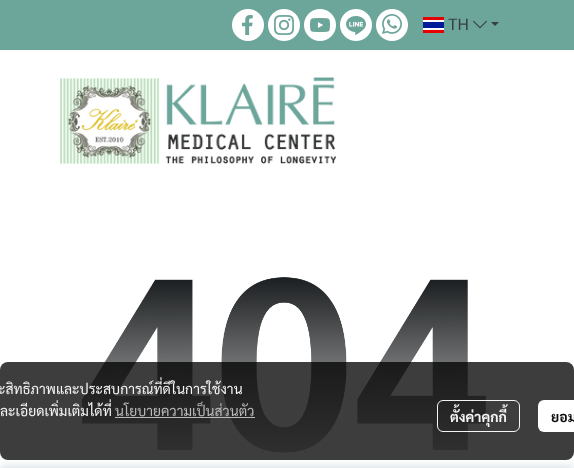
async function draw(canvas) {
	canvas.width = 574;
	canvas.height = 468;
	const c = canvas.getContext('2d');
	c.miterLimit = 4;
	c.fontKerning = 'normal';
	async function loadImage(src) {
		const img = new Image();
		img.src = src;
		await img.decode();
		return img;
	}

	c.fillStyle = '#fff';
	c.fillRect(0, 0, 574, 468);
	c.fillStyle = '#6ca69b';
	c.fillRect(0, 0, 574, 50);
	c.drawImage(await loadImage('img1.png'), 232, 9, 32, 32);
	c.drawImage(await loadImage('img2.png'), 268, 9, 32, 32);
	c.drawImage(await loadImage('img3.png'), 304, 9, 32, 32);
	c.drawImage(await loadImage('img4.png'), 340, 9, 32, 32);
	c.drawImage(await loadImage('img5.png'), 376, 9, 32, 32);
	for (const [x, y, w, h, color] of [
		[423, 20, 21, 10, '#fff'],
		[423, 22, 21, 6, '#001b9a'],
		[423, 17, 21, 3, '#e70000'],
		[423, 30, 21, 3, '#e70000'],
	]) {
		c.fillStyle = color;
		c.fillRect(x, y, w, h);
	}
	c.font = '16px Roboto';
	c.fillStyle = '#373e44';
	c.fillText('TH', 448, 30);
	c.drawImage(await loadImage('img6.png'), 473, 20, 14, 9);
	c.beginPath();
	c.moveTo(491, 22);
	c.lineTo(499, 22);
	c.lineTo(495, 26);
	c.closePath();
	c.fill();
	c.drawImage(await loadImage('img7.png'), 60, 77, 276, 87);
	c.drawImage(await loadImage('img8.png'), 82, 277, 404, 176);
	c.fillStyle = '#00354a26';
	c.filter = 'blur(5px)';
	c.beginPath();
	c.rect(0, 466, 574, 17);
	c.fill();
	c.filter = 'none';
	c.fillStyle = '#000000c2';
	c.beginPath();
	c.roundRect(0, 362, 574, 98, 8);
	c.fill();
	c.font = '14px Sarabun';
	c.fillStyle = '#f5f5f5';
	c.fillText('ะสิทธิภาพและประสบการณ์ที่ดีในการใช้งาน', -2, 394);
	c.fillText('ละเอียดเพิ่มเติมได้ที่', 0, 416);
	c.fillStyle = '#bababa';
	c.fillText('นโยบายความเป็นส่วนตัว', 115, 416);
	c.fillStyle = '#c2c2c2f2';
	c.fillRect(115, 417, 140, 1);
	c.beginPath();
	c.roundRect(437.5, 400.5, 82, 31, 5.5);
	c.strokeStyle = '#fffffff2';
	c.stroke();
	c.font = 'bold 14px Sarabun';
	c.fillStyle = '#f5f5f5';
	c.fillText('ตั้งค่าคุกกี้', 450, 422);
	c.fillStyle = '#fff';
	c.beginPath();
	c.roundRect(538, 400, 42, 32, 6);
	c.fill();
	c.fillStyle = '#0d0d0d';
	c.fillText('ยอม', 551, 422);
}

draw(document.querySelector('canvas'));
